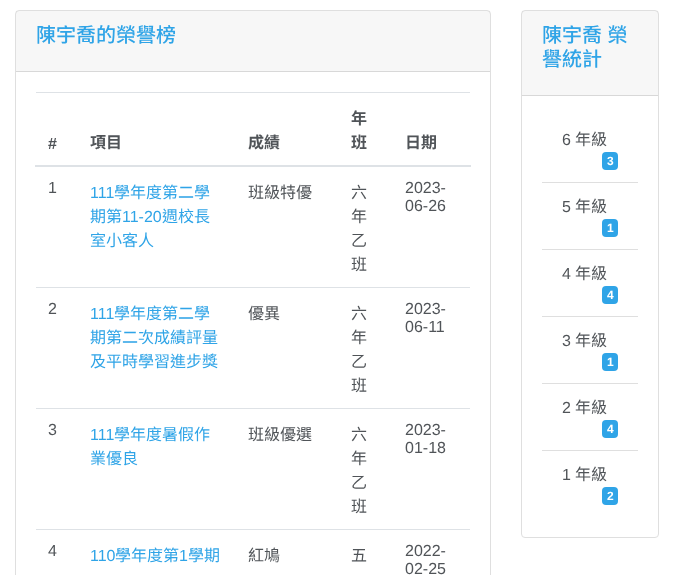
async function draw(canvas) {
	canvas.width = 674;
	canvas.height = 575;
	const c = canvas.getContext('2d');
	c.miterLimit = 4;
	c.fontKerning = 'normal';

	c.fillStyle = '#fff';
	c.fillRect(0, 0, 674, 575);
	c.beginPath();
	c.roundRect(15.5, 10.5, 475, 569, 3.5);
	c.strokeStyle = '#dfdfdf';
	c.stroke();
	c.fillStyle = '#00000008';
	c.fillRect(16, 11, 474, 60);
	c.fillStyle = '#d8d8d8';
	c.fillRect(16, 71, 474, 1);
	c.font = '500 20px Noto Sans TC';
	c.fillStyle = '#2fa4e7';
	c.fillText('陳宇喬的榮譽榜', 36, 42);
	c.font = 'bold 16px Liberation Sans';
	c.fillStyle = '#505458';
	c.fillText('#', 48, 149);
	c.font = 'bold 16px Noto Sans TC';
	for (const [text, x, y] of [
		['項目', 90, 148],
		['成績', 248, 148],
		['年', 351, 124],
		['班', 351, 148],
	]) {
		c.fillText(text, x, y);
	}
	c.fillStyle = '#dee2e6';
	c.fillRect(36, 92, 434, 1);
	c.fillRect(35, 165, 436, 2);
	c.fillStyle = '#505458';
	c.fillText('日期', 405, 148);
	c.font = '16px Liberation Sans';
	c.fillText('1', 48, 193);
	c.fillStyle = '#2fa4e7';
	c.fillText('111', 90, 198);
	c.font = '16px Noto Sans TC';
	c.fillText('學年度第二學', 114, 198);
	c.fillText('期第', 90, 222);
	c.font = '16px Liberation Sans';
	c.fillText('11-20', 122, 222);
	c.font = '16px Noto Sans TC';
	c.fillText('週校長', 162, 222);
	c.fillText('室小客人', 90, 246);
	c.fillStyle = '#505458';
	for (const [text, x, y] of [
		['班級特優', 248, 198],
		['六', 351, 198],
		['年', 351, 222],
		['乙', 351, 246],
		['班', 351, 270],
	]) {
		c.fillText(text, x, y);
	}
	c.font = '16px Liberation Sans';
	for (const [text, x, y] of [
		['2023-', 405, 193],
		['06-26', 405, 211],
		['2', 48, 314],
	]) {
		c.fillText(text, x, y);
	}
	c.fillStyle = '#2fa4e7';
	c.fillText('111', 90, 319);
	c.font = '16px Noto Sans TC';
	for (const [text, x, y] of [
		['學年度第二學', 114, 319],
		['期第二次成績評量', 90, 343],
		['及平時學習進步獎', 90, 367],
	]) {
		c.fillText(text, x, y);
	}
	c.fillStyle = '#505458';
	for (const [text, x, y] of [
		['優異', 248, 319],
		['六', 351, 319],
		['年', 351, 343],
		['乙', 351, 367],
		['班', 351, 391],
	]) {
		c.fillText(text, x, y);
	}
	c.fillStyle = '#dee2e6';
	c.fillRect(36, 287, 434, 1);
	c.font = '16px Liberation Sans';
	c.fillStyle = '#505458';
	for (const [text, x, y] of [
		['2023-', 405, 314],
		['06-11', 405, 332],
		['3', 48, 435],
	]) {
		c.fillText(text, x, y);
	}
	c.fillStyle = '#2fa4e7';
	c.fillText('111', 90, 440);
	c.font = '16px Noto Sans TC';
	c.fillText('學年度暑假作', 114, 440);
	c.fillText('業優良', 90, 464);
	c.fillStyle = '#505458';
	for (const [text, x, y] of [
		['班級優選', 248, 440],
		['六', 351, 440],
		['年', 351, 464],
		['乙', 351, 488],
		['班', 351, 512],
	]) {
		c.fillText(text, x, y);
	}
	c.fillStyle = '#dee2e6';
	c.fillRect(36, 408, 434, 1);
	c.font = '16px Liberation Sans';
	c.fillStyle = '#505458';
	for (const [text, x, y] of [
		['2023-', 405, 435],
		['01-18', 405, 453],
		['4', 48, 556],
	]) {
		c.fillText(text, x, y);
	}
	c.fillStyle = '#2fa4e7';
	c.fillText('110', 90, 561);
	c.font = '16px Noto Sans TC';
	c.fillText('學年度第', 115, 561);
	c.font = '16px Liberation Sans';
	c.fillText('1', 179, 561);
	c.font = '16px Noto Sans TC';
	c.fillText('學期', 188, 561);
	c.fillStyle = '#505458';
	c.fillText('紅鳩', 248, 561);
	c.fillText('五', 351, 561);
	c.fillStyle = '#dee2e6';
	c.fillRect(36, 529, 434, 1);
	c.font = '16px Liberation Sans';
	c.fillStyle = '#505458';
	c.fillText('2022-', 405, 556);
	c.fillText('02-25', 405, 574);
	c.beginPath();
	c.roundRect(521.5, 10.5, 137, 527, 3.5);
	c.stroke();
	c.fillStyle = '#00000008';
	c.fillRect(522, 11, 136, 84);
	c.fillStyle = '#d8d8d8';
	c.fillRect(522, 95, 136, 1);
	c.wordSpacing = '1px';
	c.font = '500 20px Noto Sans TC';
	c.fillStyle = '#2fa4e7';
	c.fillText('陳宇喬 榮', 542, 42);
	c.wordSpacing = '0px';
	c.fillText('譽統計', 542, 66);
	c.font = '16px Liberation Sans';
	c.fillStyle = '#505458';
	c.fillText('6', 562, 145);
	c.font = '16px Noto Sans TC';
	c.fillText('年級', 575, 145);
	c.fillStyle = '#2fa4e7';
	c.beginPath();
	c.roundRect(602, 152, 16, 18, 4);
	c.fill();
	c.font = 'bold 12px Liberation Sans';
	c.fillStyle = '#fff';
	c.fillText('3', 607, 165);
	c.fillStyle = '#dfdfdf';
	c.fillRect(542, 182, 96, 1);
	c.font = '16px Liberation Sans';
	c.fillStyle = '#505458';
	c.fillText('5', 562, 212);
	c.font = '16px Noto Sans TC';
	c.fillText('年級', 575, 212);
	c.fillStyle = '#2fa4e7';
	c.beginPath();
	c.roundRect(602, 219, 16, 18, 4);
	c.fill();
	c.font = 'bold 12px Liberation Sans';
	c.fillStyle = '#fff';
	c.fillText('1', 607, 232);
	c.fillStyle = '#dfdfdf';
	c.fillRect(542, 249, 96, 1);
	c.font = '16px Liberation Sans';
	c.fillStyle = '#505458';
	c.fillText('4', 562, 279);
	c.font = '16px Noto Sans TC';
	c.fillText('年級', 575, 279);
	c.fillStyle = '#2fa4e7';
	c.beginPath();
	c.roundRect(602, 286, 16, 18, 4);
	c.fill();
	c.font = 'bold 12px Liberation Sans';
	c.fillStyle = '#fff';
	c.fillText('4', 607, 299);
	c.fillStyle = '#dfdfdf';
	c.fillRect(542, 316, 96, 1);
	c.font = '16px Liberation Sans';
	c.fillStyle = '#505458';
	c.fillText('3', 562, 346);
	c.font = '16px Noto Sans TC';
	c.fillText('年級', 575, 346);
	c.fillStyle = '#2fa4e7';
	c.beginPath();
	c.roundRect(602, 353, 16, 18, 4);
	c.fill();
	c.font = 'bold 12px Liberation Sans';
	c.fillStyle = '#fff';
	c.fillText('1', 607, 366);
	c.fillStyle = '#dfdfdf';
	c.fillRect(542, 383, 96, 1);
	c.font = '16px Liberation Sans';
	c.fillStyle = '#505458';
	c.fillText('2', 562, 413);
	c.font = '16px Noto Sans TC';
	c.fillText('年級', 575, 413);
	c.fillStyle = '#2fa4e7';
	c.beginPath();
	c.roundRect(602, 420, 16, 18, 4);
	c.fill();
	c.font = 'bold 12px Liberation Sans';
	c.fillStyle = '#fff';
	c.fillText('4', 607, 433);
	c.fillStyle = '#dfdfdf';
	c.fillRect(542, 450, 96, 1);
	c.font = '16px Liberation Sans';
	c.fillStyle = '#505458';
	c.fillText('1', 562, 480);
	c.font = '16px Noto Sans TC';
	c.fillText('年級', 575, 480);
	c.fillStyle = '#2fa4e7';
	c.beginPath();
	c.roundRect(602, 487, 16, 18, 4);
	c.fill();
	c.font = 'bold 12px Liberation Sans';
	c.fillStyle = '#fff';
	c.fillText('2', 607, 500);
}

draw(document.querySelector('canvas'));
